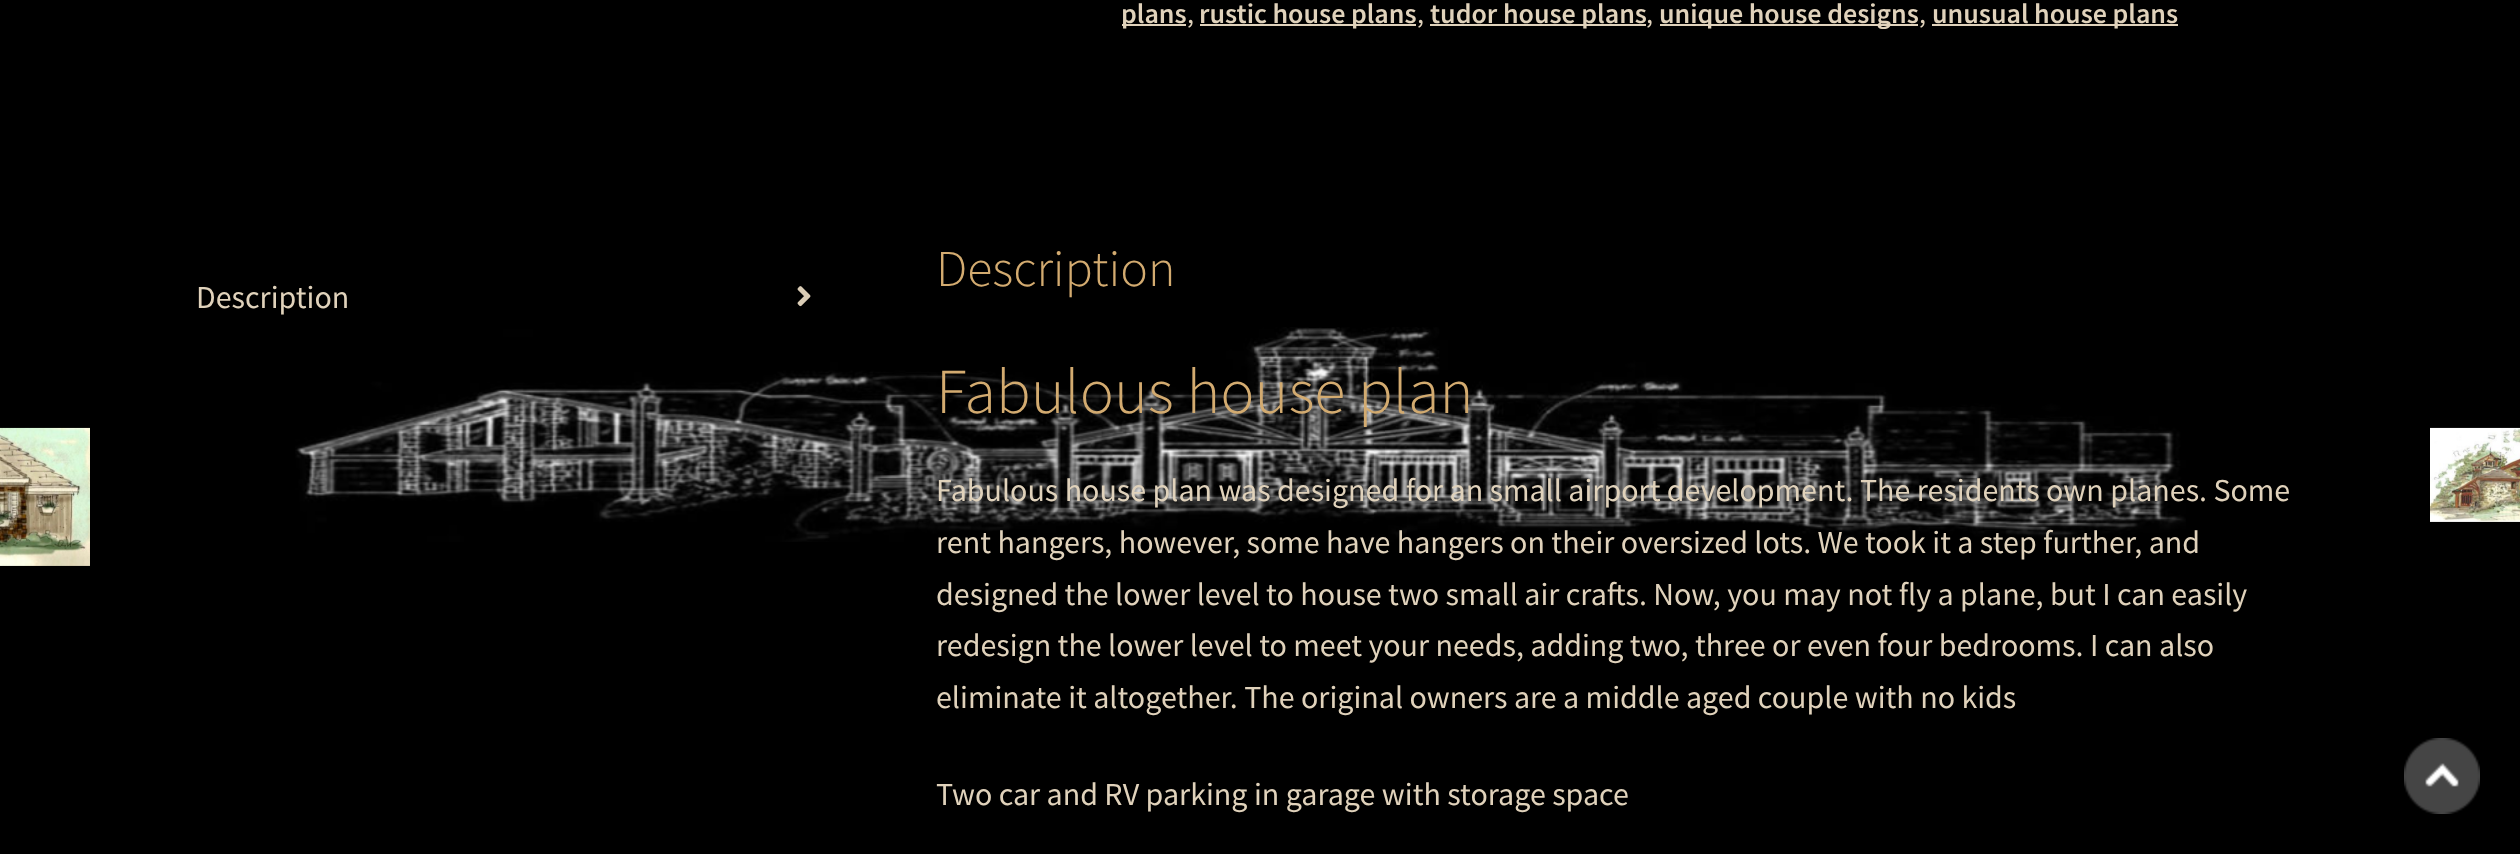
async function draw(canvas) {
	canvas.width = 2520;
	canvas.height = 854;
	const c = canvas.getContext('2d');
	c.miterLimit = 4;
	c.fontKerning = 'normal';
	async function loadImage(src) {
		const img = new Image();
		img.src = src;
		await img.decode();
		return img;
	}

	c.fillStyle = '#000';
	c.fillRect(0, 0, 2520, 854);
	c.drawImage(await loadImage('img1.png'), 295, 327, 1891, 215);
	c.fillStyle = '#e0d2bb';
	c.fillRect(1122, 24, 64, 2);
	c.font = '600 28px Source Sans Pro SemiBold';
	c.fillText('plans', 1121, 23);
	c.font = '28px Source Sans Pro';
	c.fillText(',', 1187, 23);
	c.fillRect(1200, 24, 216, 2);
	c.font = '600 28px Source Sans Pro SemiBold';
	c.fillText('rustic house plans', 1199, 23);
	c.font = '28px Source Sans Pro';
	c.fillText(',', 1417, 23);
	c.fillRect(1430, 24, 216, 2);
	c.font = '600 28px Source Sans Pro SemiBold';
	c.fillText('tudor house plans', 1430, 23);
	c.font = '28px Source Sans Pro';
	c.fillText(',', 1646, 23);
	c.fillRect(1660, 24, 258, 2);
	c.font = '600 28px Source Sans Pro SemiBold';
	c.fillText('unique house designs', 1659, 23);
	c.font = '28px Source Sans Pro';
	c.fillText(',', 1919, 23);
	c.fillRect(1932, 24, 246, 2);
	c.font = '600 28px Source Sans Pro SemiBold';
	c.fillText('unusual house plans', 1932, 23);
	c.font = '32px Source Sans Pro';
	c.fillText('Description', 196, 308);
	c.drawImage(await loadImage('img2.png'), 797, 286, 14, 21);
	c.font = '300 51.75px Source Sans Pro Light';
	c.fillStyle = '#d3ab70';
	c.fillText('Description', 936, 286);
	c.font = '300 64px Source Sans Pro Light';
	c.fillText('Fabulous house plan', 936, 413);
	c.font = '32px Source Sans Pro';
	c.fillStyle = '#e0d2bb';
	for (const [text, x, y] of [
		['Fabulous house plan was designed for an small airport development. The residents own planes. Some', 936, 501],
		['rent hangers, however, some have hangers on their oversized lots. We took it a step further, and', 936, 553],
		['designed the lower level to house two small air crafts. Now, you may not fly a plane, but I can easily', 936, 605],
		['redesign the lower level to meet your needs, adding two, three or even four bedrooms. I can also', 936, 656],
		['eliminate it altogether. The original owners are a middle aged couple with no kids', 936, 708],
		['Two car and RV parking in garage with storage space', 936, 805],
	]) {
		c.fillText(text, x, y);
	}
	c.drawImage(await loadImage('img3.png'), 0, 427, 90, 139);
	c.drawImage(await loadImage('img4.png'), 2430, 427, 90, 95);
	c.drawImage(await loadImage('img5.png'), 2404, 738, 76, 76);
}

draw(document.querySelector('canvas'));
